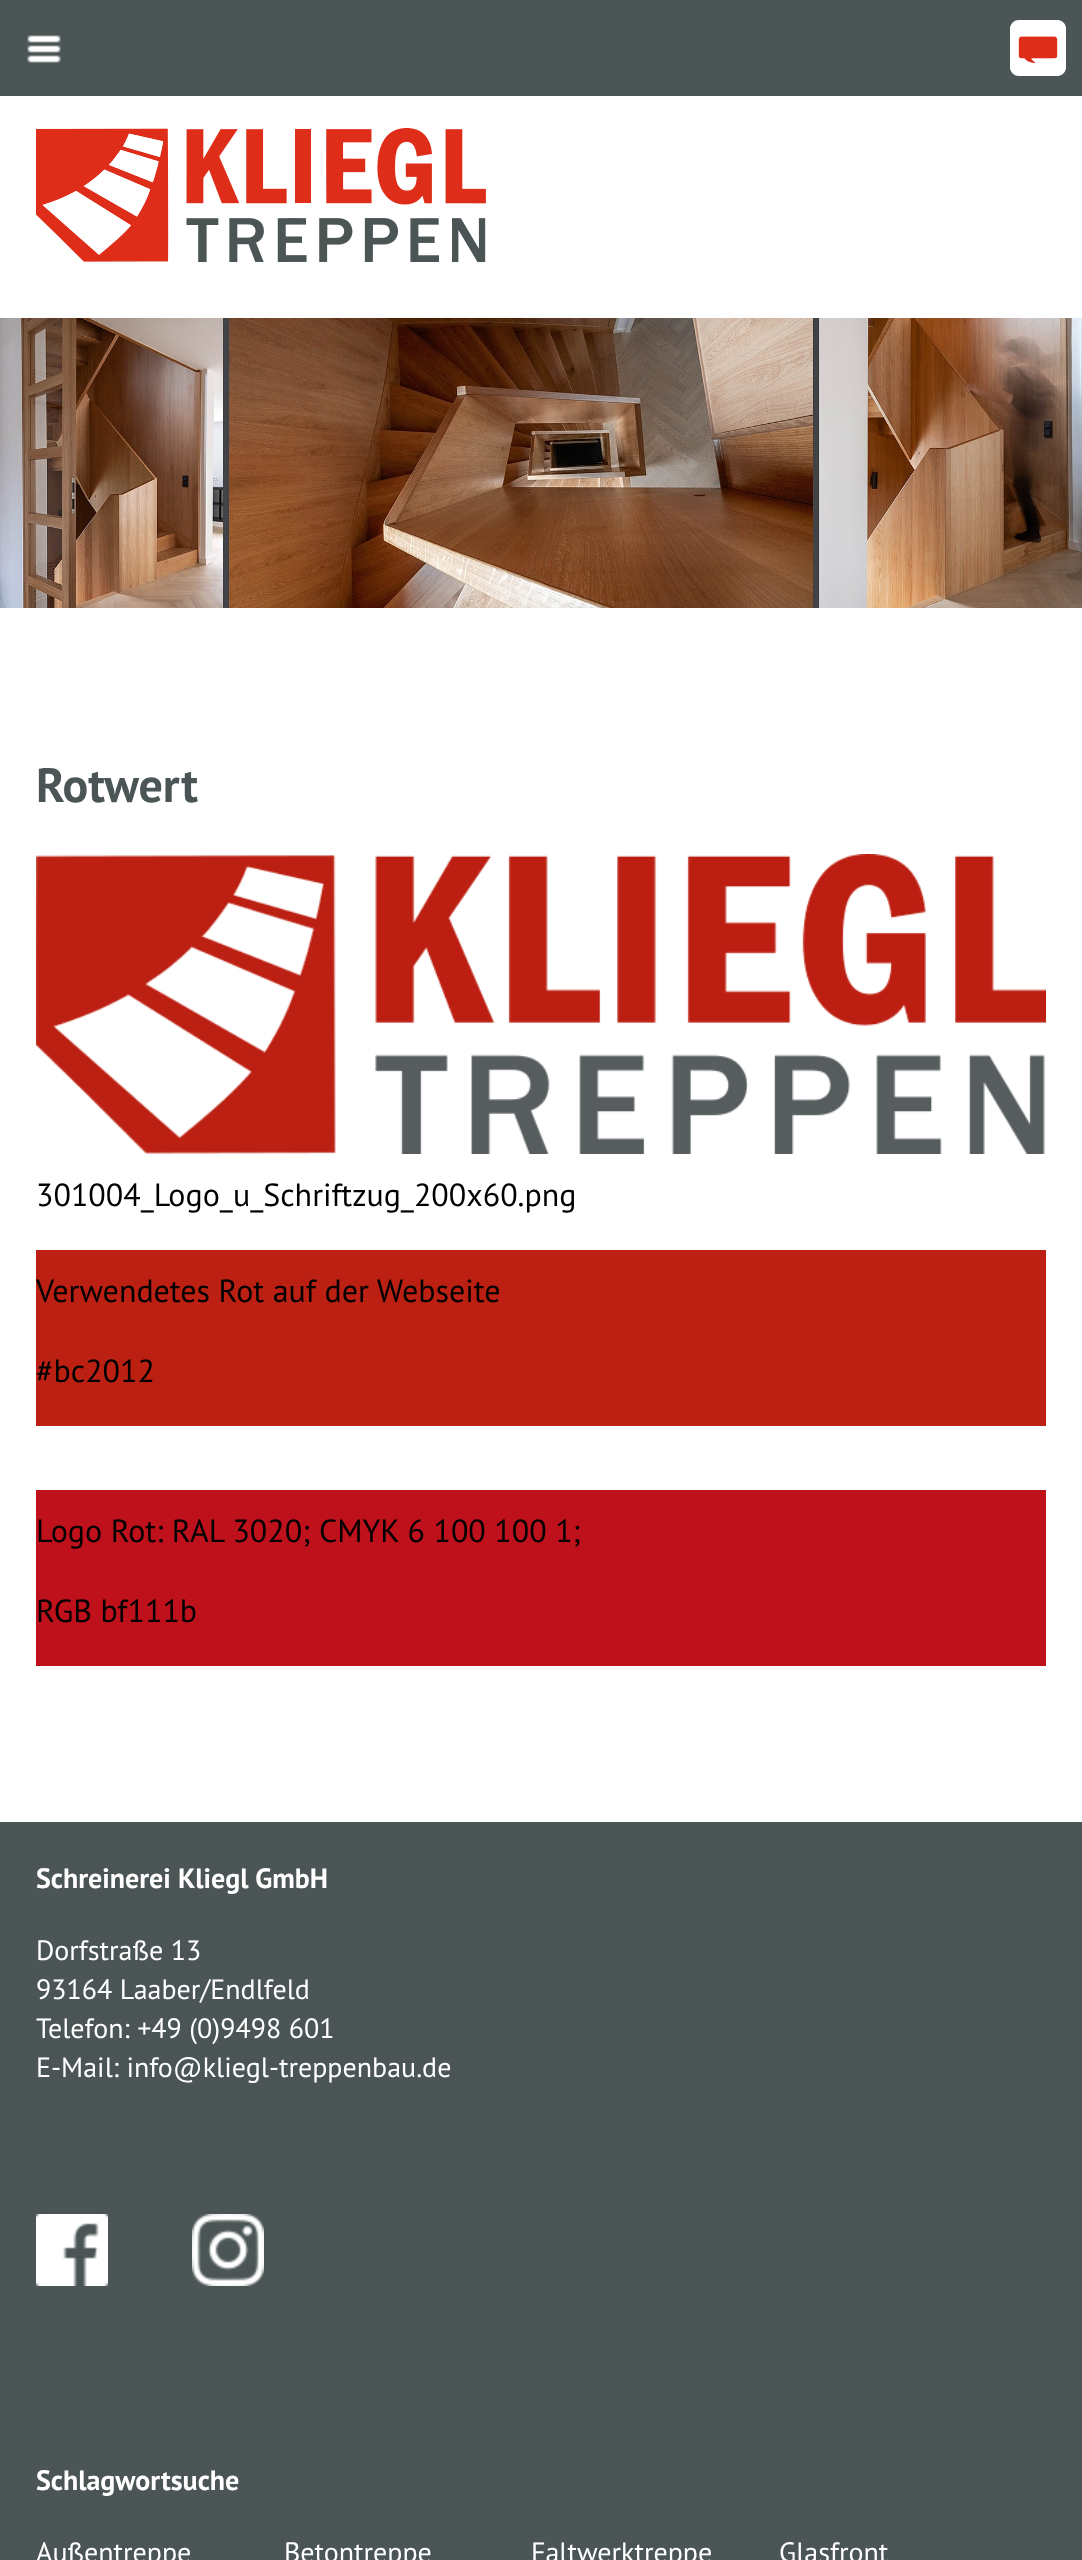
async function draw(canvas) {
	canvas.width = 1082;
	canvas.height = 2560;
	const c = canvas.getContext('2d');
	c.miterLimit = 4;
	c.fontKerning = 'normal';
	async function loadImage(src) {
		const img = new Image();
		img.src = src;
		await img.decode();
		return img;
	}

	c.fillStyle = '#fff';
	c.fillRect(0, 0, 1082, 2560);
	c.fillStyle = '#4b5556';
	c.fillRect(0, 0, 1082, 96);
	c.drawImage(await loadImage('img1.png'), 27, 35, 34, 28);
	c.drawImage(await loadImage('img2.png'), 1010, 20, 56, 56);
	c.drawImage(await loadImage('img3.png'), 36, 128, 450, 134);
	c.drawImage(await loadImage('img4.png'), 0, 318, 1082, 290);
	c.font = 'bold 48px PT Sans';
	c.fillText('Rotwert', 36, 802);
	c.drawImage(await loadImage('img5.png'), 36, 854, 1010, 300);
	c.font = '32px PT Sans';
	c.fillStyle = '#000';
	c.fillText('301004_Logo_u_Schriftzug_200x60.png', 36, 1206);
	c.fillStyle = '#bc2012';
	c.fillRect(36, 1250, 1010, 176);
	c.fillStyle = '#000';
	c.fillText('Verwendetes Rot auf der Webseite', 36, 1302);
	c.fillText('#bc2012', 36, 1382);
	c.fillStyle = '#bf111b';
	c.fillRect(36, 1490, 1010, 176);
	c.fillStyle = '#000';
	c.fillText('Logo Rot: RAL 3020; CMYK 6 100 100 1;', 36, 1542);
	c.fillText('RGB bf111b', 36, 1622);
	c.fillStyle = '#4b5556';
	c.fillRect(0, 1822, 1082, 738);
	c.font = 'bold 28px PT Sans';
	c.fillStyle = '#fff';
	c.fillText('Schreinerei Kliegl GmbH', 36, 1888);
	c.font = '28px PT Sans';
	for (const [text, x, y] of [
		['Dorfstraße 13', 36, 1960],
		['93164 Laaber/Endlfeld', 36, 1999],
		['Telefon: +49 (0)9498 601', 36, 2038],
		['E-Mail: info@kliegl-treppenbau.de', 36, 2077],
	]) {
		c.fillText(text, x, y);
	}
	c.drawImage(await loadImage('img6.png'), 36, 2214, 72, 72);
	c.drawImage(await loadImage('img7.png'), 192, 2214, 72, 72);
	c.font = 'bold 28px PT Sans';
	c.fillText('Schlagwortsuche', 36, 2490);
	c.font = '28px PT Sans';
	for (const [text, x, y] of [
		['Außentreppe', 36, 2562],
		['Betontreppe', 284, 2562],
		['Faltwerktreppe', 531, 2562],
		['Glasfront', 779, 2562],
	]) {
		c.fillText(text, x, y);
	}
}

draw(document.querySelector('canvas'));
